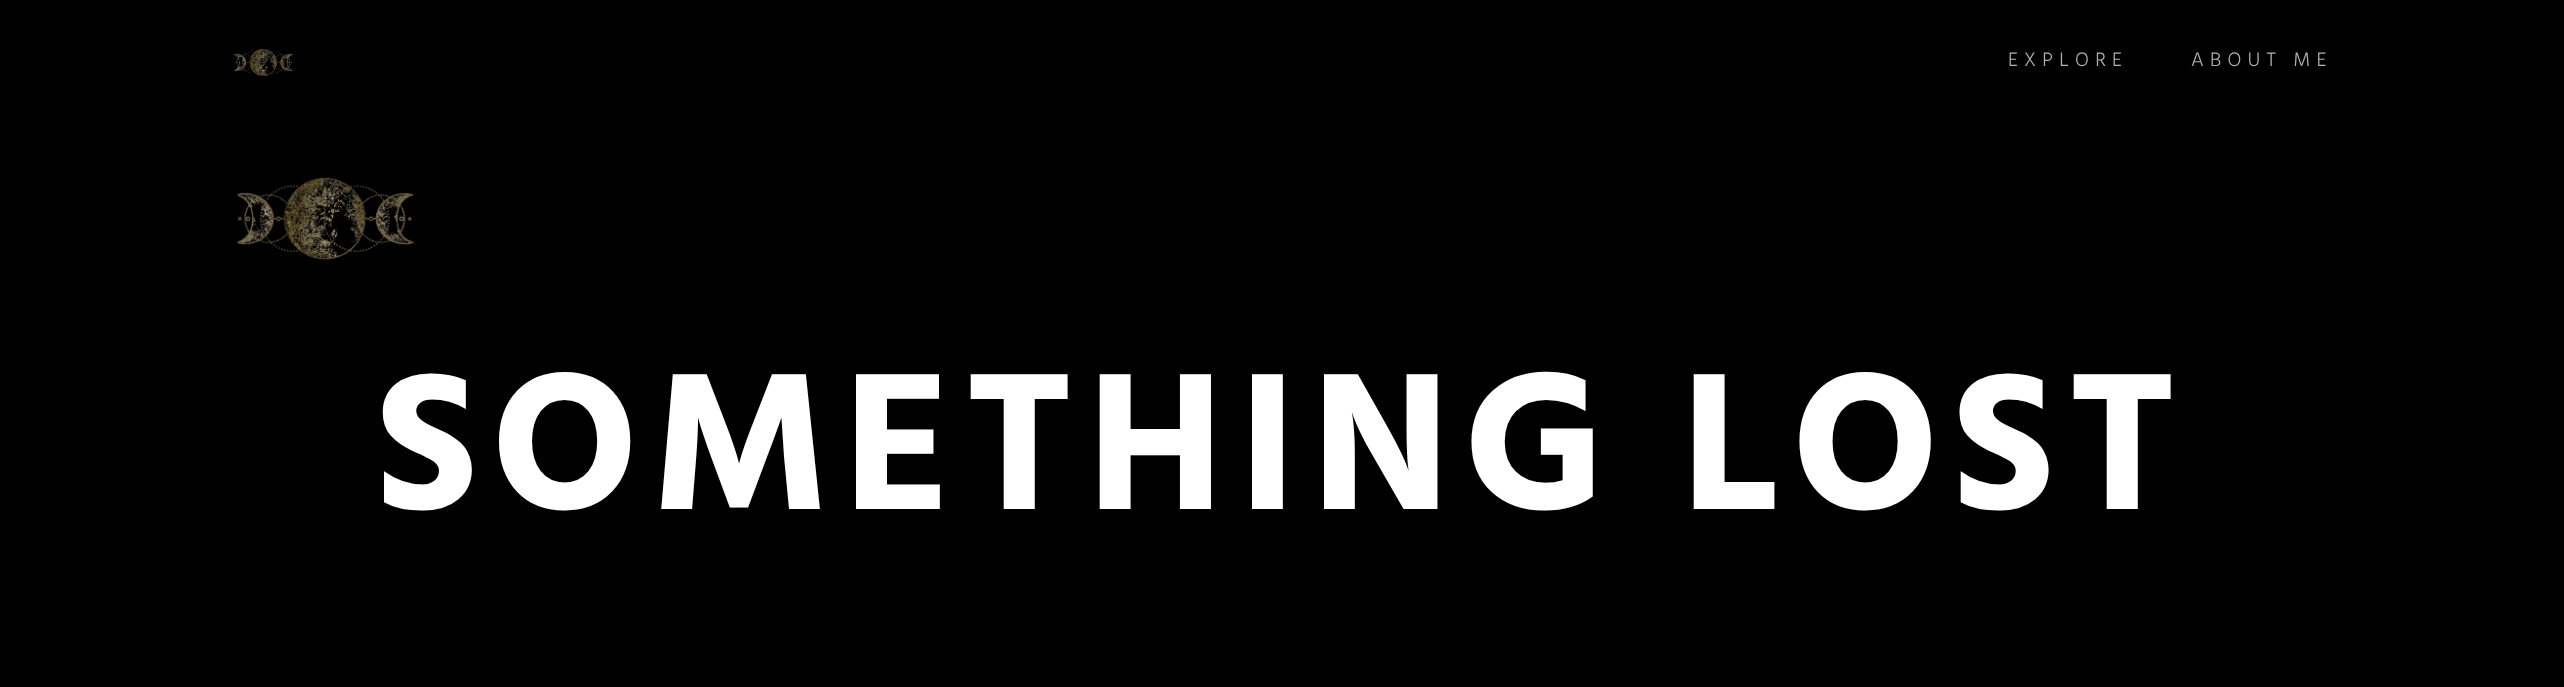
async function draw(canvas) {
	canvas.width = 2564;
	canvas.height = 687;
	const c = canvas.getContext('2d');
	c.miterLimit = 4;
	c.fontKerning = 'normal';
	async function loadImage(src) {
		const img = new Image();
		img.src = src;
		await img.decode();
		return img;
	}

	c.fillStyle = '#000';
	c.fillRect(0, 0, 2564, 687);
	c.drawImage(await loadImage('img1.png'), 234, 49, 59, 27);
	c.letterSpacing = '6.25px';
	c.font = '300 20px Hind Guntur';
	c.fillStyle = '#b0b0b0';
	c.fillText('EXPLORE', 2008, 66);
	c.fillText('ABOUT ME', 2191, 66);
	c.drawImage(await loadImage('img2.png'), 237, 177, 178, 83);
	c.letterSpacing = '13.1px';
	c.font = 'bold 200px Hind Guntur';
	c.fillStyle = '#fff';
	c.fillText('SOMETHING LOST', 375, 509);
}

draw(document.querySelector('canvas'));
